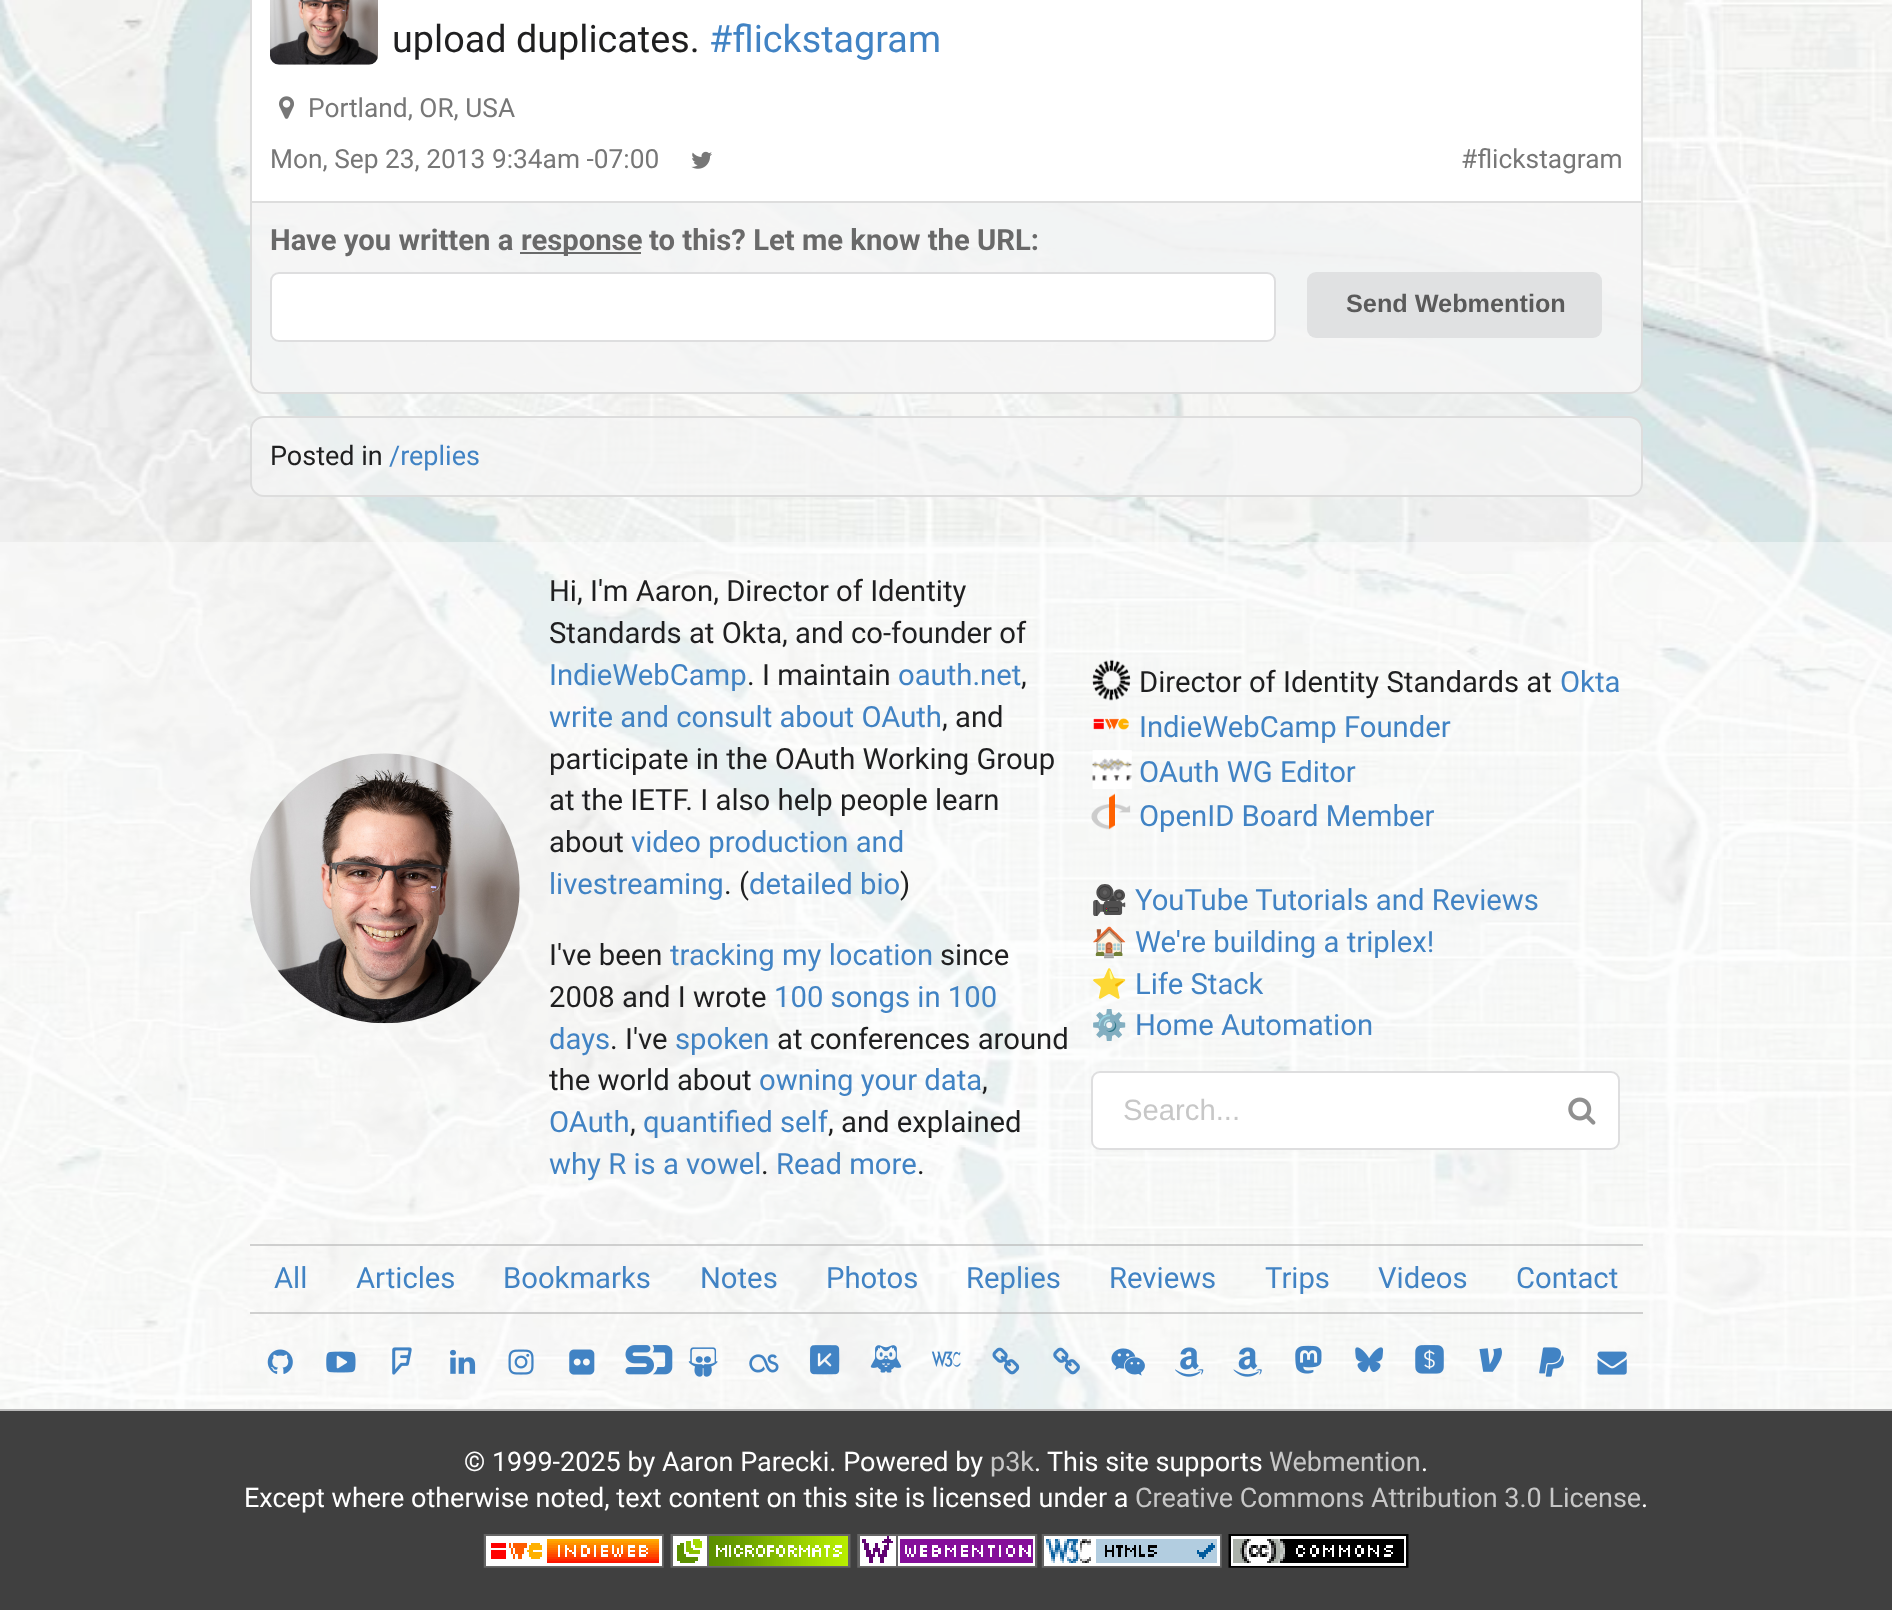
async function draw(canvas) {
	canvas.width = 1892;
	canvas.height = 1610;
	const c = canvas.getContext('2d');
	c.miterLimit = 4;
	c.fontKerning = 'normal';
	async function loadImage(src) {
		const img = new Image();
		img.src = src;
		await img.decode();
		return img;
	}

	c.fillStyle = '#fff';
	c.fillRect(0, 0, 1892, 1610);
	c.drawImage(await loadImage('img1.png'), 0, 0, 1892, 1409);
	c.fillStyle = '#f5f5f5e6';
	c.beginPath();
	c.roundRect(251, 201, 1391, 192, [0, 0, 13, 13]);
	c.fill();
	c.strokeStyle = '#ddd';
	c.lineWidth = 2;
	c.stroke();
	c.fillStyle = '#fff';
	c.beginPath();
	c.rect(251, -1, 1391, 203);
	c.fill();
	c.stroke();
	c.drawImage(await loadImage('img2.png'), 270, 0, 108, 65);
	c.font = '37.75px Roboto';
	c.fillStyle = '#1f1f20';
	c.fillText('upload duplicates.', 392, 52);
	c.fillStyle = '#4183c4';
	c.fillText('#flickstagram', 709, 52);
	c.drawImage(await loadImage('img3.png'), 279, 96, 15, 23);
	c.font = '26.3px Roboto';
	c.fillStyle = '#777';
	c.fillText('Portland, OR, USA', 308, 117);
	c.fillText('Mon, Sep 23, 2013 9:34am -07:00', 270, 168);
	c.drawImage(await loadImage('img4.png'), 691, 151, 21, 18);
	c.fillText('#flickstagram', 1461, 168);
	c.font = 'bold 29.25px Roboto';
	c.fillStyle = '#696969';
	c.fillText('Have you written a', 270, 250);
	c.fillStyle = '#00000091';
	c.fillRect(520, 252, 121, 2);
	c.fillStyle = '#696969';
	c.fillText('response', 521, 250);
	c.fillText('to this? Let me know the URL:', 649, 250);
	c.fillStyle = '#fff';
	c.beginPath();
	c.roundRect(270, 272, 1006, 70, 9);
	c.fill();
	c.beginPath();
	c.roundRect(271, 273, 1004, 68, 8);
	c.strokeStyle = '#22242626';
	c.stroke();
	c.fillStyle = '#e0e1e2';
	c.beginPath();
	c.roundRect(1307, 272, 295, 66, 9);
	c.fill();
	c.font = 'bold 25.25px Liberation Sans';
	c.fillStyle = '#5a5a5a';
	c.fillText('Send Webmention', 1346, 312);
	c.fillStyle = '#f5f5f5b3';
	c.beginPath();
	c.roundRect(251, 417, 1391, 79, 13);
	c.fill();
	c.strokeStyle = '#ddd';
	c.stroke();
	c.font = '27px Roboto';
	c.fillStyle = '#1f1f20';
	c.fillText('Posted in', 270, 465);
	c.fillStyle = '#4183c4';
	c.fillText('/replies', 389, 465);
	c.fillStyle = '#ffffff73';
	c.fillRect(0, 542, 1892, 867);
	c.drawImage(await loadImage('img5.png'), 250, 753, 270, 271);
	c.font = '29.25px Roboto';
	c.fillStyle = '#1f1f20';
	c.fillText('Hi, I\'m Aaron, Director of Identity', 549, 601);
	c.fillText('Standards at Okta, and co-founder of', 549, 643);
	c.fillStyle = '#4183c4';
	c.fillText('IndieWebCamp', 549, 685);
	c.fillStyle = '#1f1f20';
	c.fillText('. I maintain', 747, 685);
	c.fillStyle = '#4183c4';
	c.fillText('oauth.net', 898, 685);
	c.fillStyle = '#1f1f20';
	c.fillText(',', 1021, 685);
	c.fillStyle = '#4183c4';
	c.fillText('write and consult about OAuth', 549, 727);
	c.fillStyle = '#1f1f20';
	for (const [text, x, y] of [
		[', and', 942, 727],
		['participate in the OAuth Working Group', 549, 769],
		['at the IETF. I also help people learn', 549, 810],
		['about', 549, 852],
	]) {
		c.fillText(text, x, y);
	}
	c.fillStyle = '#4183c4';
	c.fillText('video production and', 631, 852);
	c.fillText('livestreaming', 549, 894);
	c.fillStyle = '#1f1f20';
	c.fillText('. (', 724, 894);
	c.fillStyle = '#4183c4';
	c.fillText('detailed bio', 749, 894);
	c.fillStyle = '#1f1f20';
	c.fillText(')', 900, 894);
	c.fillText('I\'ve been', 549, 965);
	c.fillStyle = '#4183c4';
	c.fillText('tracking my location', 670, 965);
	c.fillStyle = '#1f1f20';
	c.fillText('since', 940, 965);
	c.fillText('2008 and I wrote', 549, 1007);
	c.fillStyle = '#4183c4';
	c.fillText('100 songs in 100', 774, 1007);
	c.fillText('days', 549, 1049);
	c.fillStyle = '#1f1f20';
	c.fillText('. I\'ve', 610, 1049);
	c.fillStyle = '#4183c4';
	c.fillText('spoken', 675, 1049);
	c.fillStyle = '#1f1f20';
	c.fillText('at conferences around', 777, 1049);
	c.fillText('the world about', 549, 1090);
	c.fillStyle = '#4183c4';
	c.fillText('owning your data', 759, 1090);
	c.fillStyle = '#1f1f20';
	c.fillText(',', 982, 1090);
	c.fillStyle = '#4183c4';
	c.fillText('OAuth', 549, 1132);
	c.fillStyle = '#1f1f20';
	c.fillText(',', 630, 1132);
	c.fillStyle = '#4183c4';
	c.fillText('quantified self', 643, 1132);
	c.fillStyle = '#1f1f20';
	c.fillText(', and explained', 828, 1132);
	c.fillStyle = '#4183c4';
	c.fillText('why R is a vowel', 549, 1174);
	c.fillStyle = '#1f1f20';
	c.fillText('.', 761, 1174);
	c.fillStyle = '#4183c4';
	c.fillText('Read more', 776, 1174);
	c.fillStyle = '#1f1f20';
	c.fillText('.', 917, 1174);
	c.drawImage(await loadImage('img6.png'), 1092, 659, 39, 42);
	c.fillText('Director of Identity Standards at', 1139, 692);
	c.fillStyle = '#4183c4';
	c.fillText('Okta', 1560, 692);
	c.drawImage(await loadImage('img7.png'), 1093, 718, 36, 12);
	c.fillText('IndieWebCamp Founder', 1139, 737);
	c.drawImage(await loadImage('img8.png'), 1092, 750, 40, 39);
	c.fillText('OAuth WG Editor', 1139, 782);
	c.drawImage(await loadImage('img9.png'), 1091, 793, 40, 37);
	c.fillText('OpenID Board Member', 1139, 826);
	c.font = '29.25px Noto Color Emoji';
	c.fillStyle = '#1f1f20';
	c.fillText('🎥', 1091, 910);
	c.font = '29.25px Roboto';
	c.fillStyle = '#4183c4';
	c.fillText('YouTube Tutorials and Reviews', 1135, 910);
	c.font = '29.25px Noto Color Emoji';
	c.fillStyle = '#1f1f20';
	c.fillText('🏠', 1091, 952);
	c.font = '29.25px Roboto';
	c.fillStyle = '#4183c4';
	c.fillText('We\'re building a triplex!', 1135, 952);
	c.font = '29.25px Noto Color Emoji';
	c.fillText('⭐️', 1091, 994);
	c.font = '29.25px Roboto';
	c.fillText('Life Stack', 1135, 994);
	c.font = '29.25px Noto Color Emoji';
	c.fillStyle = '#1f1f20';
	c.fillText('⚙️', 1091, 1035);
	c.font = '29.25px Roboto';
	c.fillStyle = '#4183c4';
	c.fillText('Home Automation', 1135, 1035);
	c.fillStyle = '#fff';
	c.beginPath();
	c.roundRect(1091, 1071, 529, 79, 9);
	c.fill();
	c.beginPath();
	c.roundRect(1092, 1072, 527, 77, 8);
	c.strokeStyle = '#22242626';
	c.stroke();
	c.font = '29.25px Liberation Sans';
	c.fillStyle = '#c7c7c7';
	c.fillText('Search...', 1123, 1120);
	c.drawImage(await loadImage('img10.png'), 1568, 1097, 28, 28);
	c.fillStyle = '#b4b4b499';
	c.fillRect(250, 1244, 1393, 2);
	c.fillRect(250, 1312, 1393, 2);
	c.font = '29.25px Roboto';
	c.fillStyle = '#4183c4';
	for (const [text, x, y] of [
		['All', 274, 1288],
		['Articles', 356, 1288],
		['Bookmarks', 503, 1288],
		['Notes', 700, 1288],
		['Photos', 826, 1288],
		['Replies', 966, 1288],
		['Reviews', 1109, 1288],
		['Trips', 1265, 1288],
		['Videos', 1378, 1288],
		['Contact', 1516, 1288],
	]) {
		c.fillText(text, x, y);
	}
	c.drawImage(await loadImage('img11.png'), 267, 1349, 26, 25);
	c.drawImage(await loadImage('img12.png'), 326, 1351, 30, 22);
	c.drawImage(await loadImage('img13.png'), 392, 1347, 20, 28);
	c.drawImage(await loadImage('img14.png'), 450, 1349, 26, 25);
	c.drawImage(await loadImage('img15.png'), 508, 1349, 26, 26);
	c.drawImage(await loadImage('img16.png'), 569, 1349, 26, 26);
	c.drawImage(await loadImage('img17.png'), 625, 1345, 48, 30);
	c.drawImage(await loadImage('img18.png'), 688, 1347, 30, 30);
	c.drawImage(await loadImage('img19.png'), 749, 1354, 30, 19);
	c.drawImage(await loadImage('img20.png'), 810, 1345, 30, 30);
	c.drawImage(await loadImage('img21.png'), 870, 1345, 32, 28);
	c.drawImage(await loadImage('img22.png'), 931, 1351, 30, 16);
	c.drawImage(await loadImage('img23.png'), 992, 1347, 28, 28);
	c.drawImage(await loadImage('img24.png'), 1053, 1347, 27, 28);
	c.drawImage(await loadImage('img25.png'), 1111, 1348, 34, 28);
	c.drawImage(await loadImage('img26.png'), 1175, 1347, 29, 30);
	c.drawImage(await loadImage('img27.png'), 1233, 1347, 29, 30);
	c.drawImage(await loadImage('img28.png'), 1295, 1345, 27, 29);
	c.drawImage(await loadImage('img29.png'), 1355, 1347, 29, 26);
	c.drawImage(await loadImage('img30.png'), 1415, 1345, 29, 29);
	c.drawImage(await loadImage('img31.png'), 1479, 1347, 23, 25);
	c.drawImage(await loadImage('img32.png'), 1539, 1347, 25, 30);
	c.drawImage(await loadImage('img33.png'), 1597, 1351, 30, 24);
	c.fillStyle = '#404040';
	c.fillRect(0, 1411, 1892, 199);
	c.fillStyle = '#bbb';
	c.fillRect(0, 1409, 1892, 2);
	c.font = '27px Roboto';
	c.fillStyle = '#fff';
	c.fillText('© 1999-2025 by Aaron Parecki. Powered by', 464, 1471);
	c.fillStyle = '#c7c7c7';
	c.fillText('p3k', 990, 1471);
	c.fillStyle = '#fff';
	c.fillText('.', 1034, 1471);
	c.fillText('This site supports', 1047, 1471);
	c.fillStyle = '#c7c7c7';
	c.fillText('Webmention', 1269, 1471);
	c.fillStyle = '#fff';
	c.fillText('.', 1421, 1471);
	c.fillText('Except where otherwise noted, text content on this site is licensed under a', 244, 1507);
	c.fillStyle = '#c7c7c7';
	c.fillText('Creative Commons Attribution 3.0 License', 1135, 1507);
	c.fillStyle = '#fff';
	c.fillText('.', 1641, 1507);
	c.drawImage(await loadImage('img34.png'), 483, 1534, 181, 34);
	c.drawImage(await loadImage('img35.png'), 670, 1534, 181, 34);
	c.drawImage(await loadImage('img36.png'), 857, 1534, 181, 34);
	c.drawImage(await loadImage('img37.png'), 1041, 1534, 181, 34);
	c.drawImage(await loadImage('img38.png'), 1228, 1534, 181, 34);
}

draw(document.querySelector('canvas'));
